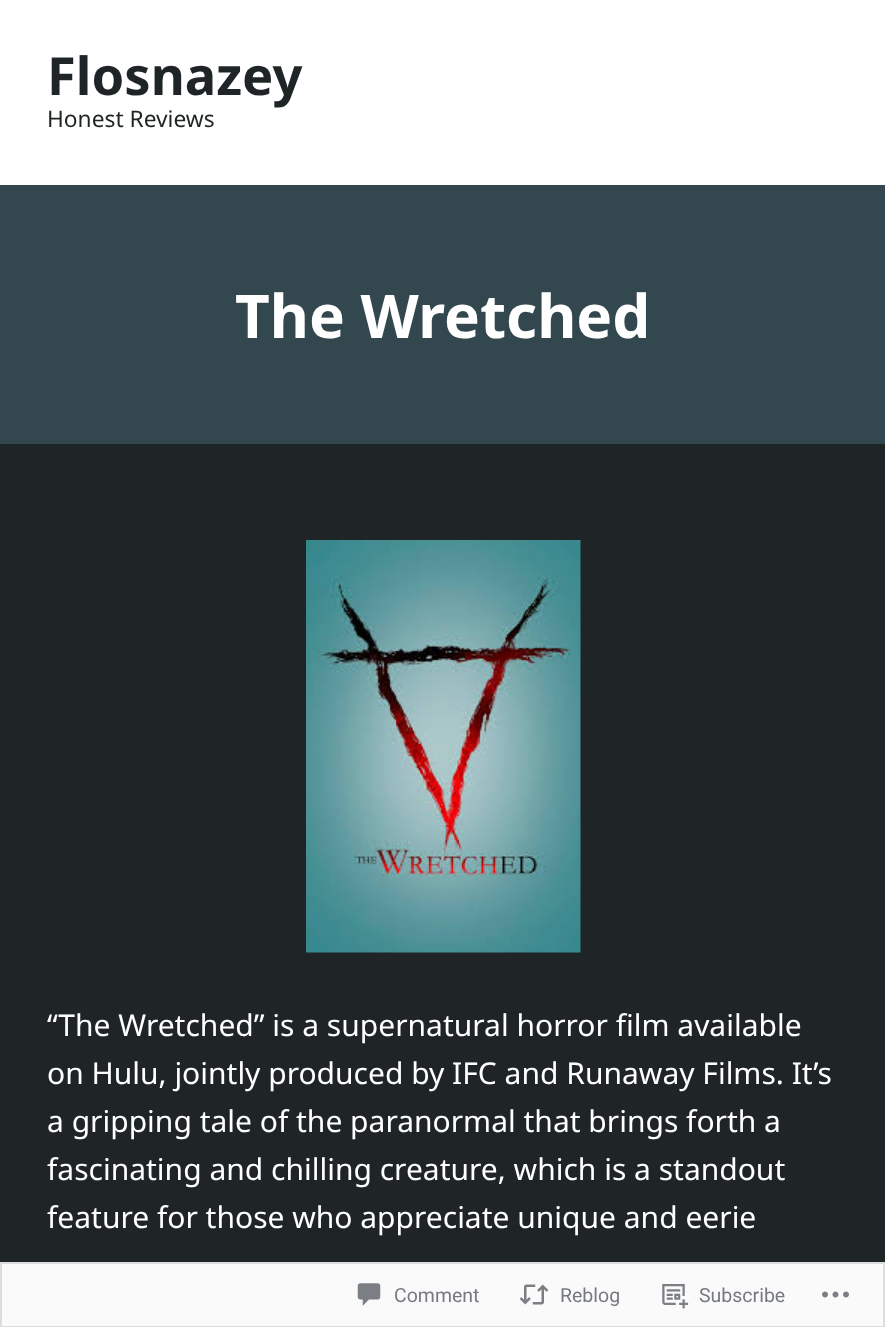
async function draw(canvas) {
	canvas.width = 885;
	canvas.height = 1327;
	const c = canvas.getContext('2d');
	c.miterLimit = 4;
	c.fontKerning = 'normal';
	async function loadImage(src) {
		const img = new Image();
		img.src = src;
		await img.decode();
		return img;
	}

	c.fillStyle = '#1f2527';
	c.fillRect(0, 0, 885, 1327);
	c.fillStyle = '#fff';
	c.fillRect(0, 0, 885, 185);
	c.font = 'bold 52.5px Noto Sans';
	c.fillStyle = '#1f2527';
	c.fillText('Flosnazey', 47, 95);
	c.font = '22.75px Noto Sans';
	c.fillText('Honest Reviews', 47, 127);
	c.fillStyle = '#33474e';
	c.fillRect(0, 185, 885, 259);
	c.font = 'bold 60.25px Noto Sans';
	c.fillStyle = '#fff';
	c.fillText('The Wretched', 235, 338);
	c.drawImage(await loadImage('img1.png'), 306, 540, 275, 413);
	c.font = '30px Noto Sans';
	for (const [text, x, y] of [
		['“The Wretched” is a supernatural horror film available', 47, 1036],
		['on Hulu, jointly produced by IFC and Runaway Films. It’s', 47, 1084],
		['a gripping tale of the paranormal that brings forth a', 47, 1132],
		['fascinating and chilling creature, which is a standout', 47, 1180],
		['feature for those who appreciate unique and eerie', 47, 1228],
	]) {
		c.fillText(text, x, y);
	}
	c.fillStyle = '#fffffffa';
	c.fillRect(0, 1262, 885, 65);
	c.strokeStyle = '#dcdcdefa';
	c.lineWidth = 2;
	c.strokeRect(1, 1263, 883, 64);
	c.drawImage(await loadImage('img2.png'), 357, 1283, 24, 23);
	c.font = '19.5px Roboto';
	c.fillStyle = '#767a80';
	c.fillText('Comment', 394, 1302);
	c.drawImage(await loadImage('img3.png'), 519, 1284, 30, 21);
	c.fillText('Reblog', 560, 1302);
	c.drawImage(await loadImage('img4.png'), 662, 1284, 27, 25);
	c.fillText('Subscribe', 699, 1302);
	c.drawImage(await loadImage('img5.png'), 822, 1291, 27, 7);
}

draw(document.querySelector('canvas'));
